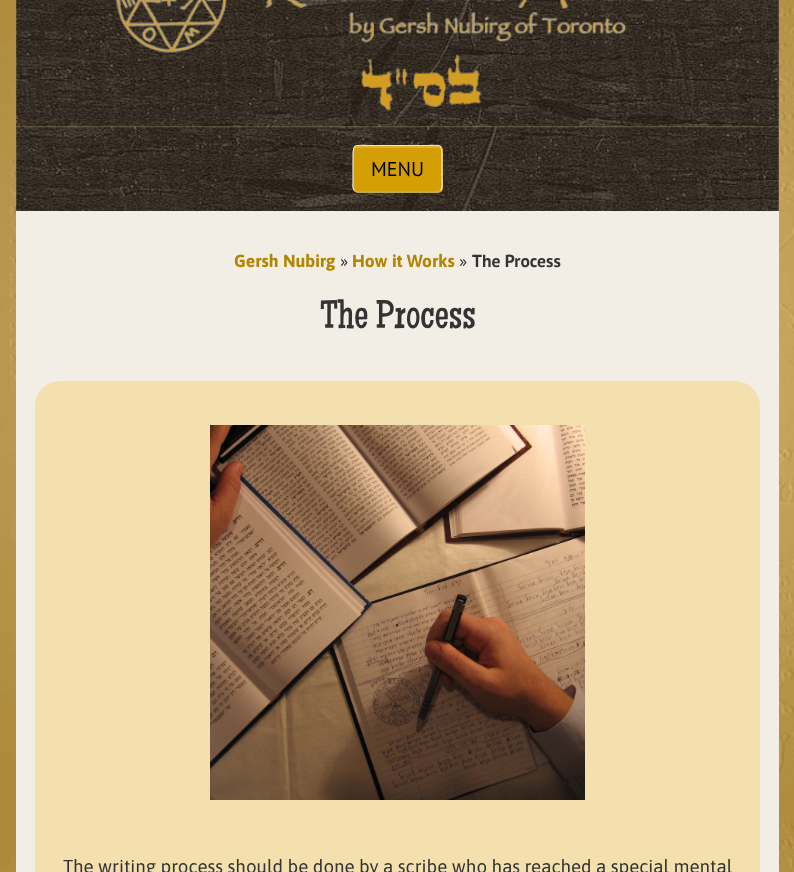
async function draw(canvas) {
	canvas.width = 794;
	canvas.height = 872;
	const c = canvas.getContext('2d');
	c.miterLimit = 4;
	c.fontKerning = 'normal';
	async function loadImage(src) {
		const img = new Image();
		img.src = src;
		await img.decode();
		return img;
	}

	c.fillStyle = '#fff';
	c.fillRect(0, 0, 794, 872);
	c.drawImage(await loadImage('img1.png'), 0, 0, 794, 872);
	c.drawImage(await loadImage('img4.png'), 16, 126, 763, 85);
	c.drawImage(await loadImage('img2.png'), 16, 0, 763, 127);
	c.drawImage(await loadImage('img3.png'), 116, 0, 577, 111);
	c.fillStyle = '#d39f04';
	c.beginPath();
	c.roundRect(353, 145, 90, 48, 5);
	c.fill();
	c.fillStyle = '#dcb236';
	c.beginPath();
	c.moveTo(358, 148);
	c.lineTo(438, 148);
	c.bezierCurveTo(440, 148, 441, 149, 441, 151);
	c.bezierCurveTo(441, 143, 429, 146, 424, 146);
	c.lineTo(371, 146);
	c.bezierCurveTo(366, 146, 354, 143, 354, 151);
	c.bezierCurveTo(354, 149, 355, 148, 358, 148);
	c.closePath();
	c.fill();
	c.beginPath();
	c.moveTo(440.5, 190.5);
	c.lineTo(438, 192);
	c.lineTo(357, 192);
	c.lineTo(354.5, 190.5);
	c.strokeStyle = '#b3b3b3';
	c.lineWidth = 1.2;
	c.stroke();
	c.beginPath();
	c.moveTo(354.5, 190.5);
	c.bezierCurveTo(352, 188.5, 353, 183.5, 353, 181);
	c.lineTo(353, 156);
	c.bezierCurveTo(353, 142.5, 355, 145.5, 371, 145.5);
	c.lineTo(424, 145.5);
	c.bezierCurveTo(440, 145.5, 442, 142.5, 442, 156);
	c.lineTo(442, 181);
	c.bezierCurveTo(442, 183.5, 443, 188.5, 440.5, 190.5);
	c.strokeStyle = '#e6e6e6';
	c.stroke();
	c.font = '20px PT Sans';
	c.fillStyle = '#000';
	c.fillText('MENU', 371, 176);
	c.fillStyle = '#f3eee5';
	c.fillRect(16, 211, 763, 661);
	c.font = 'bold 17.5px Asap';
	c.fillStyle = '#b18603';
	c.fillText('Gersh Nubirg', 234, 267);
	c.font = '17.5px Asap';
	c.fillStyle = '#333';
	c.fillText('»', 340, 267);
	c.font = 'bold 17.5px Asap';
	c.fillStyle = '#b18603';
	c.fillText('How it Works', 352, 267);
	c.font = '17.5px Asap';
	c.fillStyle = '#333';
	c.fillText('»', 459, 267);
	c.font = 'bold 17.5px PT Sans';
	c.fillText('The Process', 472, 267);
	c.font = '40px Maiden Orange';
	c.fillText('The Process', 320, 328);
	c.fillStyle = '#f4e0ae';
	c.beginPath();
	c.roundRect(35, 381, 725, 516, 25);
	c.fill();
	c.drawImage(await loadImage('img5.png'), 210, 425, 375, 375);
	c.font = '18.75px Asap';
	c.fillStyle = '#333';
	c.fillText('The writing process should be done by a scribe who has reached a special mental', 63, 873);
}

draw(document.querySelector('canvas'));
